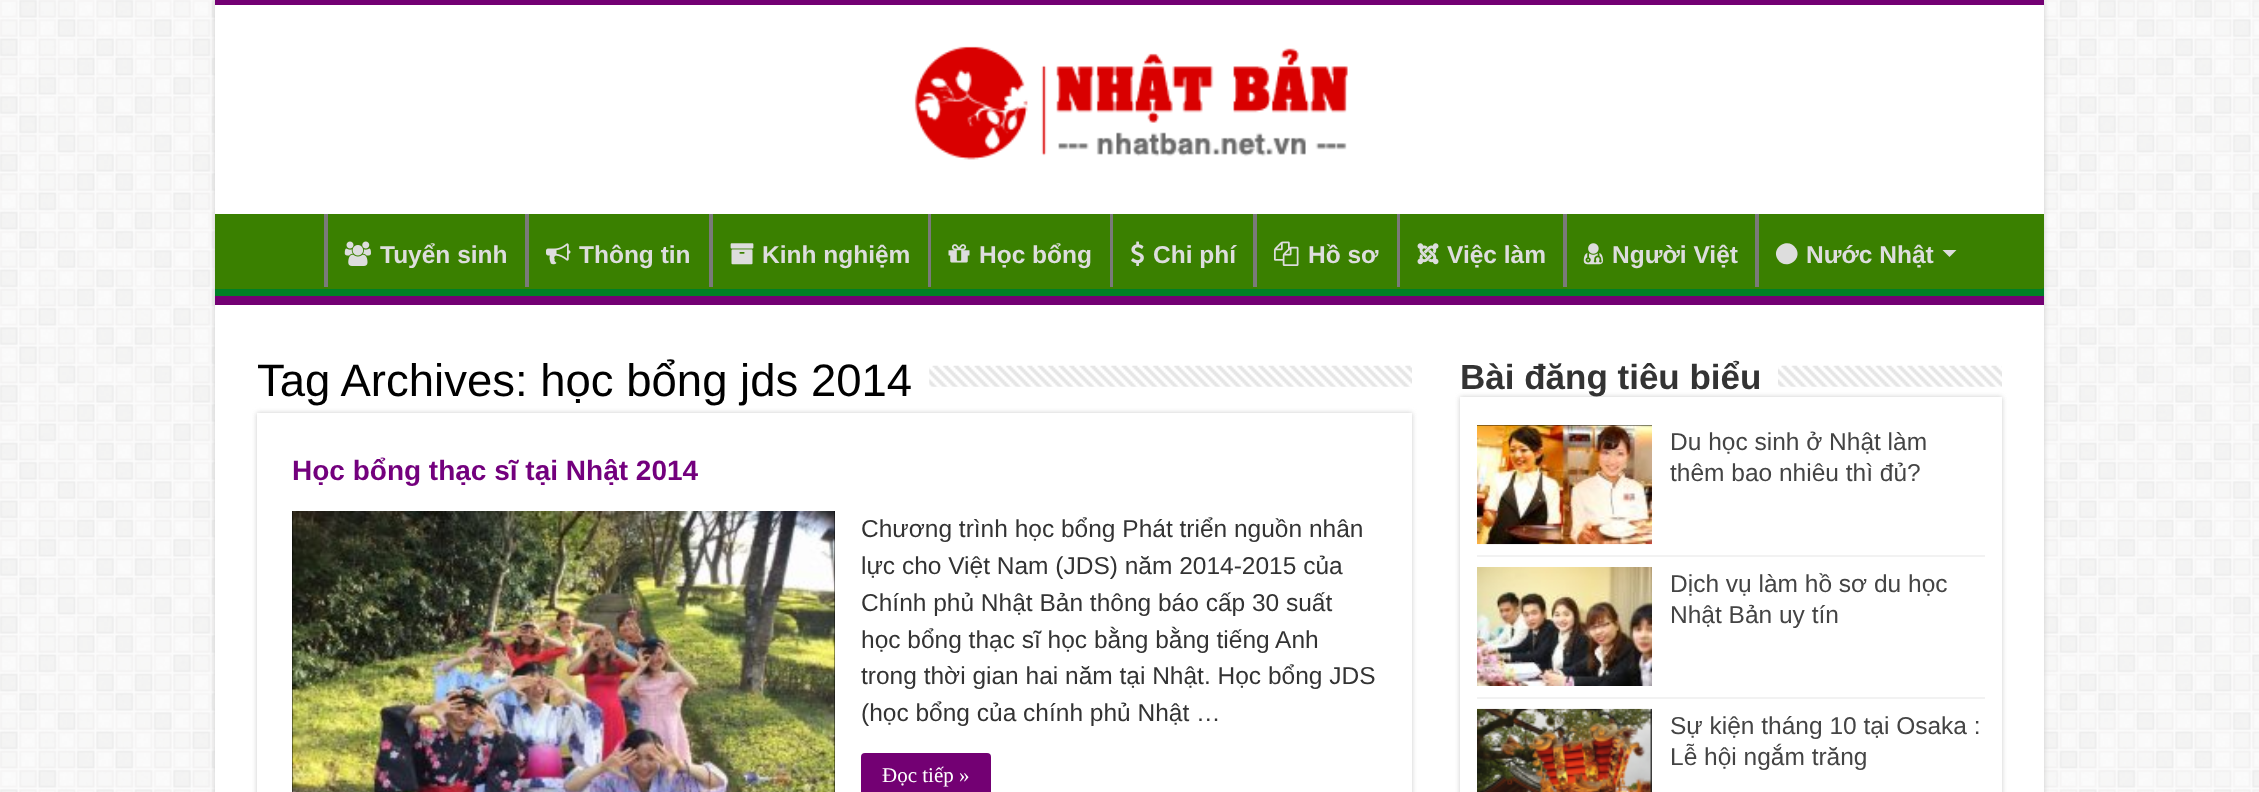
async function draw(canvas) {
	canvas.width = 2259;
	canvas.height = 792;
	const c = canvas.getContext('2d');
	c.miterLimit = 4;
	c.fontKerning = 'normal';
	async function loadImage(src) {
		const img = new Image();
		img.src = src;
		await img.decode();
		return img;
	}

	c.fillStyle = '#fff';
	c.fillRect(0, 0, 2259, 792);
	c.drawImage(await loadImage('img1.png'), 0, 0, 2259, 792);
	c.fillStyle = '#cacaca';
	c.filter = 'blur(2.5px)';
	c.beginPath();
	c.rect(215, 0, 1829, 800);
	c.fill();
	c.filter = 'none';
	c.fillStyle = '#fff';
	c.fillRect(215, 5, 1829, 787);
	c.fillStyle = '#730073';
	c.fillRect(215, 0, 1829, 5);
	c.drawImage(await loadImage('img2.png'), 914, 46, 434, 114);
	c.fillStyle = '#3a8000';
	c.fillRect(215, 214, 1829, 75);
	c.save();
	c.beginPath();
	c.rect(215, 214, 1829, 82);
	c.clip();
	c.fillStyle = '#008026';
	c.beginPath();
	c.moveTo(42, 40);
	c.lineTo(2217, 40);
	c.lineTo(2217, 469);
	c.lineTo(42, 469);
	c.closePath();
	c.moveTo(214, 203);
	c.lineTo(2042, 203);
	c.bezierCurveTo(2043, 203, 2044, 204, 2044, 205);
	c.lineTo(2044, 287);
	c.bezierCurveTo(2044, 288, 2043, 289, 2042, 289);
	c.lineTo(214, 289);
	c.bezierCurveTo(213, 289, 212, 288, 212, 287);
	c.lineTo(212, 205);
	c.bezierCurveTo(212, 204, 213, 203, 214, 203);
	c.closePath();
	c.fill('evenodd');
	c.restore();
	c.fillStyle = '#730073';
	c.fillRect(215, 296, 1829, 9);
	c.fillStyle = '#7a7a7a';
	c.fillRect(324, 214, 4, 73);
	c.drawImage(await loadImage('img3.png'), 344, 241, 27, 25);
	c.font = 'bold 24.5px Liberation Sans';
	c.fillStyle = '#ddd';
	c.fillText('Tuyển sinh', 380, 263);
	c.fillStyle = '#7a7a7a';
	c.fillRect(525, 214, 4, 73);
	c.drawImage(await loadImage('img4.png'), 546, 243, 25, 22);
	c.fillStyle = '#ddd';
	c.fillText('Thông tin', 579, 263);
	c.fillStyle = '#7a7a7a';
	c.fillRect(709, 214, 4, 73);
	c.drawImage(await loadImage('img5.png'), 730, 243, 24, 22);
	c.fillStyle = '#ddd';
	c.fillText('Kinh nghiệm', 762, 263);
	c.fillStyle = '#7a7a7a';
	c.fillRect(928, 214, 3, 73);
	c.drawImage(await loadImage('img6.png'), 948, 244, 22, 19);
	c.fillStyle = '#ddd';
	c.fillText('Học bổng', 979, 263);
	c.fillStyle = '#7a7a7a';
	c.fillRect(1110, 214, 3, 73);
	c.drawImage(await loadImage('img7.png'), 1131, 241, 13, 25);
	c.fillStyle = '#ddd';
	c.fillText('Chi phí', 1153, 263);
	c.fillStyle = '#7a7a7a';
	c.fillRect(1253, 214, 4, 73);
	c.drawImage(await loadImage('img8.png'), 1274, 241, 25, 25);
	c.fillStyle = '#ddd';
	c.fillText('Hồ sơ', 1308, 263);
	c.fillStyle = '#7a7a7a';
	c.fillRect(1397, 214, 3, 73);
	c.drawImage(await loadImage('img9.png'), 1417, 243, 22, 22);
	c.fillStyle = '#ddd';
	c.fillText('Việc làm', 1447, 263);
	c.fillStyle = '#7a7a7a';
	c.fillRect(1563, 214, 4, 73);
	c.drawImage(await loadImage('img10.png'), 1583, 243, 20, 22);
	c.fillStyle = '#ddd';
	c.fillText('Người Việt', 1612, 263);
	c.fillStyle = '#7a7a7a';
	c.fillRect(1755, 214, 4, 73);
	c.fillStyle = '#ddd';
	c.beginPath();
	c.moveTo(1796, 248.5);
	c.bezierCurveTo(1803, 260.5, 1784.5, 271, 1777.5, 259);
	c.bezierCurveTo(1770.5, 247, 1789, 236.5, 1796, 248.5);
	c.closePath();
	c.fill();
	c.fillText('Nước Nhật', 1806, 263);
	c.beginPath();
	c.moveTo(1942.5, 250);
	c.lineTo(1956.5, 250);
	c.lineTo(1949.5, 257);
	c.closePath();
	c.fill();
	c.fillStyle = '#cacaca';
	c.filter = 'blur(2.5px)';
	c.beginPath();
	c.rect(257, 413, 1155, 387);
	c.fill();
	c.filter = 'none';
	c.font = '45.5px Liberation Sans';
	c.fillStyle = '#000';
	c.fillText('Tag Archives: học bổng jds 2014', 257, 396);
	c.drawImage(await loadImage('img11.png'), 929, 365, 483, 22);
	c.fillStyle = '#fff';
	c.fillRect(257, 413, 1155, 379);
	c.font = 'bold 28px Liberation Sans';
	c.fillStyle = '#73007d';
	c.fillText('Học bổng thạc sĩ tại Nhật 2014', 292, 480);
	c.fillStyle = '#000';
	c.fillRect(292, 511, 543, 281);
	c.drawImage(await loadImage('img12.png'), 292, 511, 543, 281);
	c.font = '24.5px Liberation Sans';
	c.fillStyle = '#333';
	for (const [text, x, y] of [
		['Chương trình học bổng Phát triển nguồn nhân', 861, 537],
		['lực cho Việt Nam (JDS) năm 2014-2015 của', 861, 574],
		['Chính phủ Nhật Bản thông báo cấp 30 suất', 861, 611],
		['học bổng thạc sĩ học bằng bằng tiếng Anh', 861, 648],
		['trong thời gian hai năm tại Nhật. Học bổng JDS', 861, 684],
		['(học bổng của chính phủ Nhật …', 861, 721],
	]) {
		c.fillText(text, x, y);
	}
	c.fillStyle = '#730073';
	c.beginPath();
	c.roundRect(861, 753, 130, 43, 4);
	c.fill();
	c.font = '21px Liberation Serif';
	c.fillStyle = '#fff';
	c.fillText('Đọc tiếp »', 882, 782);
	c.fillStyle = '#cacaca';
	c.filter = 'blur(2.5px)';
	c.beginPath();
	c.rect(1460, 397, 542, 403);
	c.fill();
	c.filter = 'none';
	c.font = 'bold 35px Liberation Sans';
	c.fillStyle = '#333';
	c.fillText('Bài đăng tiêu biểu', 1460, 389);
	c.drawImage(await loadImage('img13.png'), 1778, 365, 224, 22);
	for (const [x, y, w, h, color] of [
		[1460, 397, 542, 395, '#fff'],
		[1477, 555, 508, 2, '#f2f2f2'],
		[1477, 425, 175, 1, '#000'],
	]) {
		c.fillStyle = color;
		c.fillRect(x, y, w, h);
	}
	c.drawImage(await loadImage('img14.png'), 1477, 425, 175, 120);
	c.font = '24.5px Liberation Sans';
	c.fillStyle = '#444';
	c.fillText('Du học sinh ở Nhật làm', 1670, 450);
	c.fillText('thêm bao nhiêu thì đủ?', 1670, 481);
	c.fillStyle = '#f2f2f2';
	c.fillRect(1477, 697, 508, 2);
	c.drawImage(await loadImage('img15.png'), 1477, 567, 175, 119);
	c.fillStyle = '#444';
	c.fillText('Dịch vụ làm hồ sơ du học', 1670, 592);
	c.fillText('Nhật Bản uy tín', 1670, 623);
	c.drawImage(await loadImage('img16.png'), 1477, 708, 175, 84);
	c.fillText('Sự kiện tháng 10 tại Osaka :', 1670, 734);
	c.fillText('Lễ hội ngắm trăng', 1670, 765);
}

draw(document.querySelector('canvas'));
